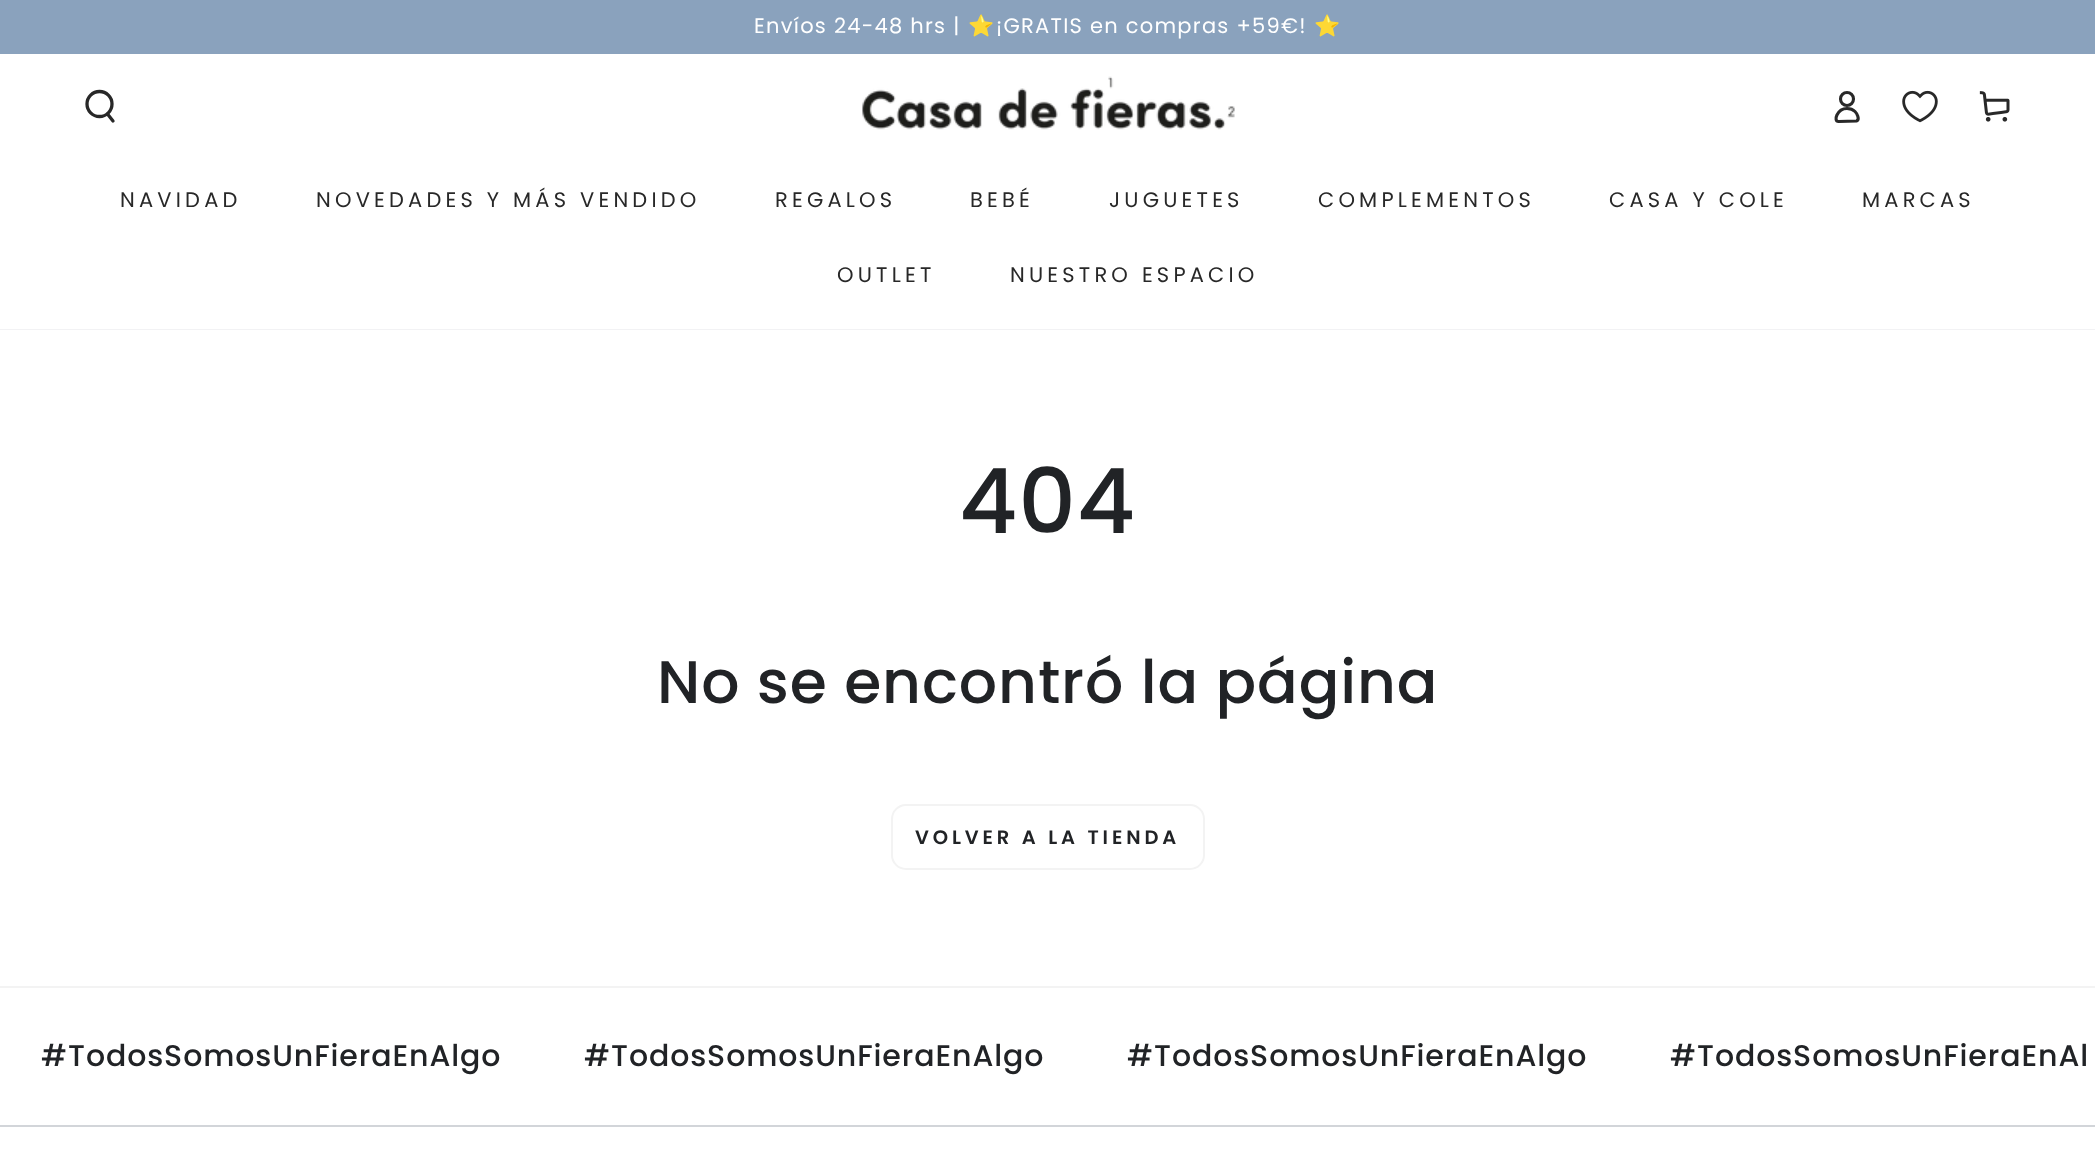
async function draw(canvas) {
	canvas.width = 2095;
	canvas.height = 1166;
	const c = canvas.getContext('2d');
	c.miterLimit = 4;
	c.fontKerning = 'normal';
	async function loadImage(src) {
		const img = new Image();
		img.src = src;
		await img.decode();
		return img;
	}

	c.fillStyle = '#fff';
	c.fillRect(0, 0, 2095, 1166);
	c.fillStyle = '#8aa2bd';
	c.fillRect(0, 0, 2095, 54);
	c.letterSpacing = '1.25px';
	c.font = '21px Poppins';
	c.fillStyle = '#fff';
	c.fillText('Envíos 24-48 hrs |', 754, 33);
	c.font = '21px Noto Color Emoji';
	c.fillText('⭐', 968, 33);
	c.font = '21px Poppins';
	c.fillText('¡GRATIS en compras +59€!', 996, 33);
	c.font = '21px Noto Color Emoji';
	c.fillText('⭐', 1314, 33);
	c.fillStyle = '#f2f2f4';
	c.beginPath();
	c.moveTo(0, 328);
	c.lineTo(0, 330);
	c.lineTo(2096, 330);
	c.lineTo(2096, 56);
	c.lineTo(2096, 328);
	c.closePath();
	c.fill();
	c.beginPath();
	c.arc(99.5, 104, 12.5, 0, 2 * Math.PI);
	c.strokeStyle = '#282828';
	c.lineWidth = 3.3;
	c.stroke();
	c.beginPath();
	c.moveTo(107.5, 114);
	c.lineTo(113, 121);
	c.lineCap = 'round';
	c.stroke();
	c.drawImage(await loadImage('img1.png'), 862, 76, 373, 54);
	c.beginPath();
	c.moveTo(1847, 108.5);
	c.bezierCurveTo(1837, 108.5, 1833, 121.5, 1838.5, 121.5);
	c.lineTo(1856.5, 121);
	c.bezierCurveTo(1860.5, 119.5, 1856.5, 113, 1855, 111.5);
	c.bezierCurveTo(1853, 109.5, 1850, 108.5, 1847, 108.5);
	c.closePath();
	c.lineWidth = 3.1;
	c.lineCap = 'butt';
	c.stroke();
	c.beginPath();
	c.arc(1847, 99, 6.5, 0, 2 * Math.PI);
	c.stroke();
	c.drawImage(await loadImage('img2.png'), 1902, 90, 36, 33);
	c.drawImage(await loadImage('img3.png'), 1979, 91, 31, 31);
	c.letterSpacing = '4.2px';
	c.font = '21px Poppins';
	c.fillStyle = '#282828';
	for (const [text, x, y] of [
		['NAVIDAD', 120, 207],
		['NOVEDADES Y MÁS VENDIDO', 316, 207],
		['REGALOS', 775, 207],
		['BEBÉ', 970, 207],
		['JUGUETES', 1109, 207],
		['COMPLEMENTOS', 1318, 207],
		['CASA Y COLE', 1609, 207],
		['MARCAS', 1862, 207],
		['OUTLET', 837, 282],
		['NUESTRO ESPACIO', 1010, 282],
	]) {
		c.fillText(text, x, y);
	}
	c.fillStyle = '#fff';
	c.fillRect(0, 328, 2095, 1);
	c.letterSpacing = '0.9px';
	c.font = '500 90px Poppins';
	c.fillStyle = '#212326';
	c.fillText('404', 959, 533);
	c.font = '500 60px Poppins';
	c.fillText('No se encontró la página', 657, 703);
	c.beginPath();
	c.roundRect(892, 805, 312, 64, 14);
	c.strokeStyle = '#f3f3f3';
	c.lineWidth = 2;
	c.stroke();
	c.letterSpacing = '3.9px';
	c.font = '600 19.5px Poppins';
	c.fillText('VOLVER A LA TIENDA', 915, 844);
	c.fillStyle = '#f3f3f3';
	c.fillRect(0, 986, 2095, 2);
	c.letterSpacing = '0.9px';
	c.font = '500 30px Poppins';
	c.fillStyle = '#212326';
	for (const [text, x, y] of [
		['#TodosSomosUnFieraEnAlgo', 41, 1066],
		['#TodosSomosUnFieraEnAlgo', 584, 1066],
		['#TodosSomosUnFieraEnAlgo', 1127, 1066],
		['#TodosSomosUnFieraEnAl', 1670, 1066],
	]) {
		c.fillText(text, x, y);
	}
	c.fillStyle = '#d2d5d9';
	c.fillRect(0, 1125, 2095, 2);
}

draw(document.querySelector('canvas'));
